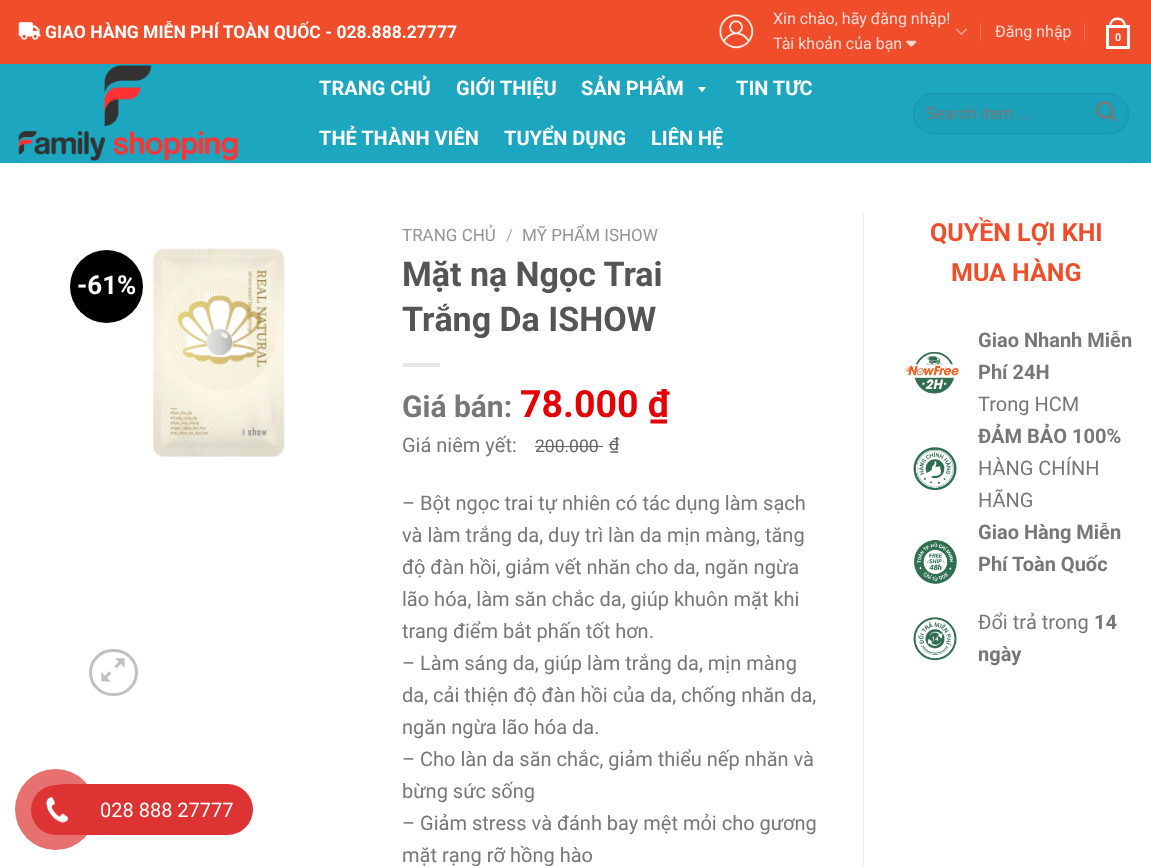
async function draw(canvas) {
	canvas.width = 1151;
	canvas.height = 866;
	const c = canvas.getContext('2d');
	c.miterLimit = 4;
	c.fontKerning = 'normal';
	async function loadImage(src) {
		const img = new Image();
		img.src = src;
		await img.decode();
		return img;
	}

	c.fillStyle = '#fff';
	c.fillRect(0, 0, 1151, 866);
	c.fillStyle = '#f04e2b';
	c.fillRect(0, 0, 1151, 64);
	c.drawImage(await loadImage('img1.png'), 18, 22, 23, 18);
	c.font = 'bold 17.5px Roboto';
	c.fillStyle = '#fff';
	c.fillText('GIAO HÀNG MIỄN PHÍ TOÀN QUỐC - 028.888.27777', 45, 38);
	c.drawImage(await loadImage('img2.png'), 719, 14, 35, 35);
	c.font = '16px Roboto';
	c.fillStyle = '#fcdcd5';
	c.fillText('Xin chào, hãy đăng nhập!', 773, 24);
	c.fillText('Tài khoản của bạn', 773, 49);
	c.drawImage(await loadImage('img3.png'), 906, 40, 11, 7);
	c.drawImage(await loadImage('img4.png'), 956, 28, 11, 7);
	c.fillStyle = '#f37155';
	c.fillRect(980, 23, 1, 18);
	c.fillStyle = '#fcdcd5';
	c.fillText('Đăng nhập', 995, 37);
	c.fillStyle = '#f37155';
	c.fillRect(1084, 23, 1, 18);
	c.strokeStyle = '#fff';
	c.lineWidth = 3;
	c.strokeRect(1107.5, 26.5, 21, 21);
	c.fillStyle = '#fff';
	c.beginPath();
	c.moveTo(1117.5, 17.5);
	c.bezierCurveTo(1123.5, 17.5, 1126, 22, 1126, 27.5);
	c.lineTo(1109, 27.5);
	c.bezierCurveTo(1109, 22, 1111.5, 17.5, 1117.5, 17.5);
	c.closePath();
	c.moveTo(1117.5, 20);
	c.bezierCurveTo(1122, 20, 1124, 23.5, 1124, 27.5);
	c.lineTo(1111, 27.5);
	c.bezierCurveTo(1111, 23.5, 1113, 20, 1117.5, 20);
	c.closePath();
	c.fill('evenodd');
	c.font = 'bold 11px Liberation Sans';
	c.fillText('0', 1115, 41);
	c.fillStyle = '#1ca6bf';
	c.fillRect(0, 64, 1151, 99);
	c.drawImage(await loadImage('img5.png'), 18, 65, 220, 96);
	c.font = 'bold 20px Roboto';
	c.fillStyle = '#fff';
	for (const [text, x, y] of [
		['TRANG CHỦ', 319, 95],
		['GIỚI THIỆU', 456, 95],
		['SẢN PHẨM', 581, 95],
	]) {
		c.fillText(text, x, y);
	}
	c.beginPath();
	c.moveTo(706, 87);
	c.lineTo(702, 92.5);
	c.lineTo(698, 87);
	c.closePath();
	c.fill();
	for (const [text, x, y] of [
		['TIN TỨC', 736, 95],
		['THẺ THÀNH VIÊN', 319, 145],
		['TUYỂN DỤNG', 504, 145],
		['LIÊN HỆ', 651, 145],
	]) {
		c.fillText(text, x, y);
	}
	c.fillStyle = '#1ba1b9';
	c.beginPath();
	c.roundRect(913.5, 93.5, 215, 40, 20);
	c.fill();
	c.strokeStyle = '#1993a8';
	c.lineWidth = 1;
	c.stroke();
	c.font = '16.5px Roboto';
	c.fillStyle = '#777';
	c.fillText('Search item ...', 926, 119);
	c.drawImage(await loadImage('img6.png'), 1096, 101, 20, 21);
	c.fillStyle = '#f1f1f1';
	c.fillRect(19, 163, 1114, 1);
	c.fillStyle = '#000';
	c.beginPath();
	c.arc(106.5, 286.5, 36.5, 0, 2 * Math.PI);
	c.fill();
	c.font = 'bold 26px Roboto';
	c.fillStyle = '#fff';
	c.fillText('-61%', 77, 294);
	c.drawImage(await loadImage('img7.png'), 152, 248, 133, 210);
	c.beginPath();
	c.roundRect(90.5, 650.5, 46, 44, 22);
	c.strokeStyle = '#c0c0c0';
	c.lineWidth = 3;
	c.stroke();
	c.drawImage(await loadImage('img8.png'), 101, 658, 24, 24);
	c.fillStyle = '#ececec';
	c.fillRect(863, 213, 1, 653);
	c.font = '17px Roboto';
	c.fillStyle = '#949494';
	c.fillText('TRANG CHỦ', 402, 241);
	c.fillStyle = '#b2b2b2';
	c.fillText('/', 506, 241);
	c.fillStyle = '#949494';
	c.fillText('MỸ PHẨM ISHOW', 522, 241);
	c.font = 'bold 34px Roboto';
	c.fillStyle = '#555';
	c.fillText('Mặt nạ Ngọc Trai', 402, 286);
	c.fillText('Trắng Da ISHOW', 402, 331);
	c.fillStyle = '#e6e6e6';
	c.fillRect(403, 363, 37, 4);
	c.font = 'bold 30px Roboto';
	c.fillStyle = '#777';
	c.fillText('Giá bán:', 402, 417);
	c.font = 'bold 37.5px Roboto';
	c.fillStyle = '#e50006';
	c.fillText('78.000 ₫', 520, 417);
	c.font = '20px Roboto';
	c.fillStyle = '#777';
	c.fillText('Giá niêm yết:', 402, 452);
	c.font = '17.5px Roboto';
	c.fillStyle = '#666';
	c.fillText('200.000', 535, 452);
	c.fillRect(535, 446, 68, 1);
	c.fillText('₫', 609, 450);
	c.fillRect(609, 444, 10, 1);
	c.font = '20px Roboto';
	c.fillStyle = '#777';
	for (const [text, x, y] of [
		['– Bột ngọc trai tự nhiên có tác dụng làm sạch', 402, 510],
		['và làm trắng da, duy trì làn da mịn màng, tăng', 402, 542],
		['độ đàn hồi, giảm vết nhăn cho da, ngăn ngừa', 402, 574],
		['lão hóa, làm săn chắc da, giúp khuôn mặt khi', 402, 606],
		['trang điểm bắt phấn tốt hơn.', 402, 638],
		['– Làm sáng da, giúp làm trắng da, mịn màng', 402, 670],
		['da, cải thiện độ đàn hồi của da, chống nhăn da,', 402, 702],
		['ngăn ngừa lão hóa da.', 402, 734],
		['– Cho làn da săn chắc, giảm thiểu nếp nhăn và', 402, 766],
		['bừng sức sống', 402, 798],
		['– Giảm stress và đánh bay mệt mỏi cho gương', 402, 830],
		['mặt rạng rỡ hồng hào', 402, 862],
	]) {
		c.fillText(text, x, y);
	}
	c.font = 'bold 25px Roboto';
	c.fillStyle = '#f04e2b';
	c.fillText('QUYỀN LỢI KHI', 930, 241);
	c.fillText('MUA HÀNG', 951, 281);
	c.drawImage(await loadImage('img9.png'), 902, 352, 57, 42);
	c.font = 'bold 20px Roboto';
	c.fillStyle = '#777';
	c.fillText('Giao Nhanh Miễn', 978, 347);
	c.fillText('Phí 24H', 978, 379);
	c.font = '20px Roboto';
	c.fillText('Trong HCM', 978, 411);
	c.drawImage(await loadImage('img10.png'), 913, 447, 44, 44);
	c.font = 'bold 20px Roboto';
	c.fillText('ĐẢM BẢO 100%', 978, 443);
	c.font = '20px Roboto';
	c.fillText('HÀNG CHÍNH', 978, 475);
	c.fillText('HÃNG', 978, 507);
	c.drawImage(await loadImage('img11.png'), 914, 539, 43, 45);
	c.font = 'bold 20px Roboto';
	c.fillText('Giao Hàng Miễn', 978, 539);
	c.fillText('Phí Toàn Quốc', 978, 571);
	c.drawImage(await loadImage('img12.png'), 913, 617, 44, 44);
	c.font = '20px Roboto';
	c.fillText('Đổi trả trong', 978, 629);
	c.font = 'bold 20px Roboto';
	c.fillText('14', 1094, 629);
	c.fillText('ngày', 978, 661);
	c.fillStyle = '#d33';
	c.beginPath();
	c.roundRect(38, 784, 215, 51, 25.5);
	c.fill();
	c.fillStyle = '#dd3333b3';
	c.beginPath();
	c.arc(55.5, 809.5, 40.5, 0, 2 * Math.PI);
	c.fill();
	c.fillStyle = '#d33';
	c.beginPath();
	c.arc(56, 810, 25, 0, 2 * Math.PI);
	c.fill();
	c.drawImage(await loadImage('img13.png'), 46, 796, 22, 27);
	c.font = '20px Roboto';
	c.fillStyle = '#fff';
	c.fillText('028 888 27777', 100, 817);
}

draw(document.querySelector('canvas'));
